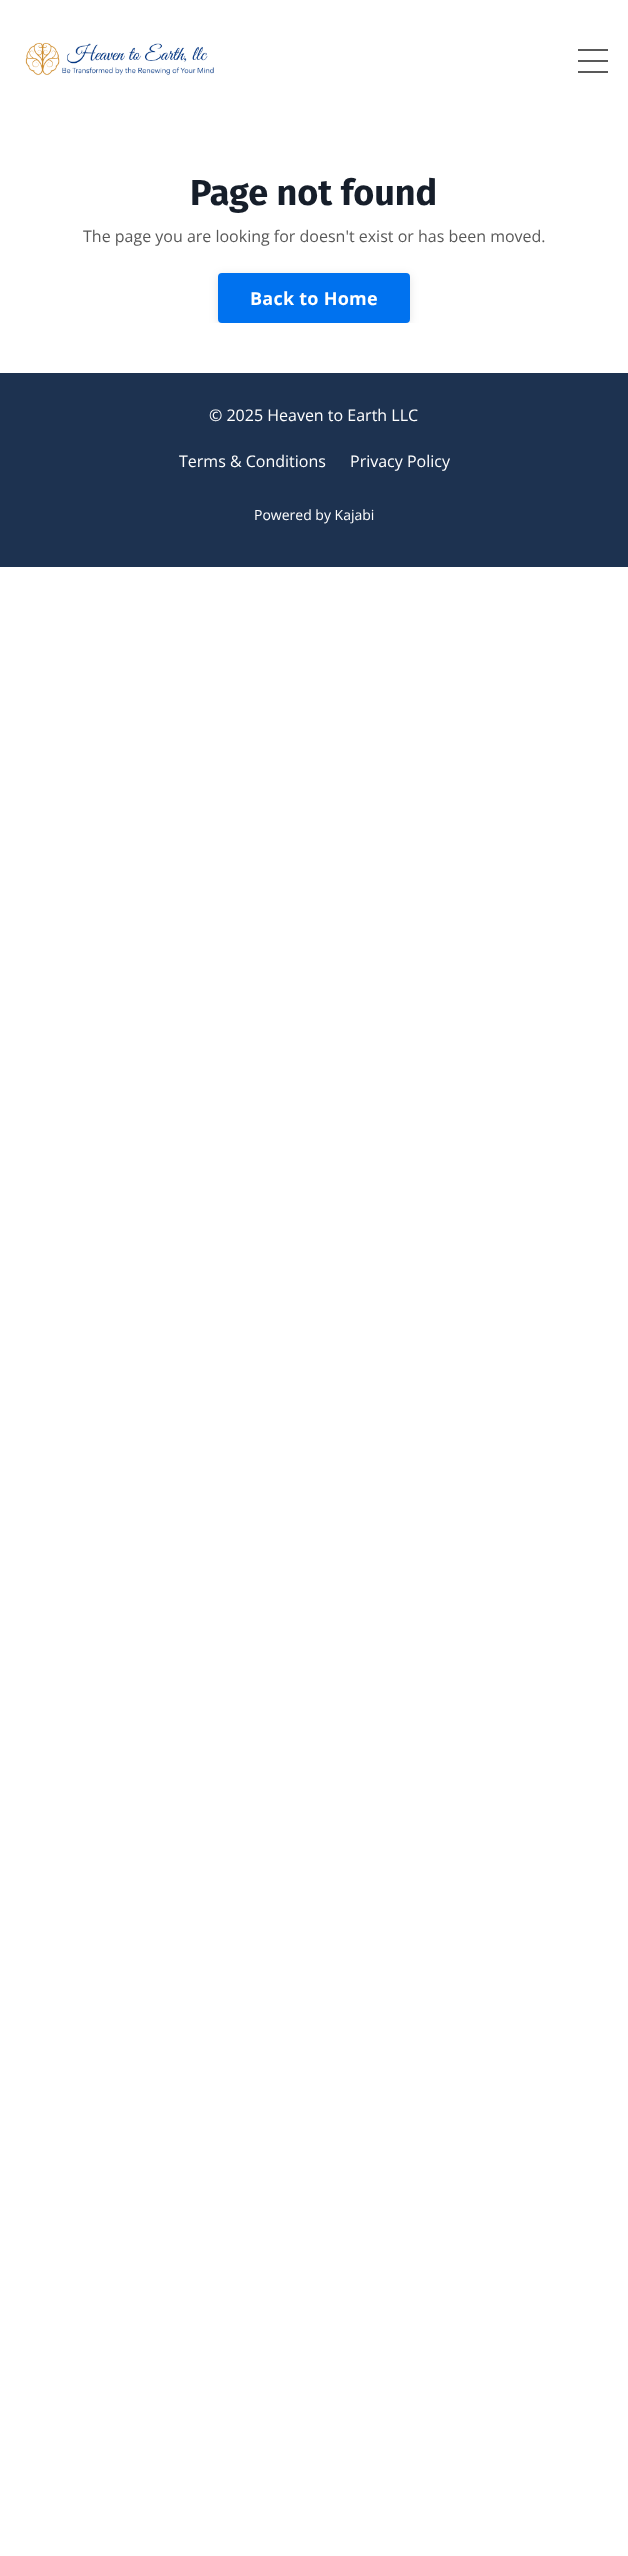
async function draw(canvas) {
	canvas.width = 628;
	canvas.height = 2556;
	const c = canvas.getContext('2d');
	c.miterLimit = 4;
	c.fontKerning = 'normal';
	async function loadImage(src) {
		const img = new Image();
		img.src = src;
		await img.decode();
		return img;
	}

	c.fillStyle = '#fff';
	c.fillRect(0, 0, 628, 2556);
	c.drawImage(await loadImage('img1.png'), 25, 42, 189, 34);
	for (const [x, y, w, h, color] of [
		[578, 49, 30, 2, '#595959'],
		[578, 60, 30, 2, '#595959'],
		[578, 71, 30, 2, '#595959'],
	]) {
		c.fillStyle = color;
		c.fillRect(x, y, w, h);
	}
	c.font = 'bold 36px Fira Sans';
	c.fillStyle = '#161e2a';
	c.fillText('Page not found', 190, 205);
	c.font = '16px Open Sans';
	c.fillStyle = '#595959';
	c.fillText('The page you are looking for doesn\'t exist or has been moved.', 83, 242);
	c.save();
	c.beginPath();
	c.roundRect(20, 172, 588, 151, 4);
	c.clip();
	c.fillStyle = '#0000001a';
	c.filter = 'blur(5px)';
	c.beginPath();
	c.roundRect(218, 275, 192, 50, 4);
	c.fill();
	c.filter = 'none';
	c.restore();
	c.fillStyle = '#0072ef';
	c.beginPath();
	c.roundRect(219, 274, 190, 48, 3);
	c.fill();
	c.strokeStyle = '#0072ef';
	c.lineWidth = 2;
	c.stroke();
	c.letterSpacing = '0.25px';
	c.font = 'bold 18px Open Sans';
	c.fillStyle = '#fff';
	c.fillText('Back to Home', 250, 305);
	c.fillStyle = '#1d3250';
	c.fillRect(0, 373, 628, 194);
	c.letterSpacing = '0px';
	c.font = '16px Open Sans';
	c.fillStyle = '#fff';
	for (const [text, x, y] of [
		['© 2025 Heaven to Earth LLC', 209, 421],
		['Terms & Conditions', 179, 467],
		['Privacy Policy', 350, 467],
	]) {
		c.fillText(text, x, y);
	}
	c.font = '14px Open Sans';
	c.fillText('Powered by Kajabi', 254, 520);
}

draw(document.querySelector('canvas'));
